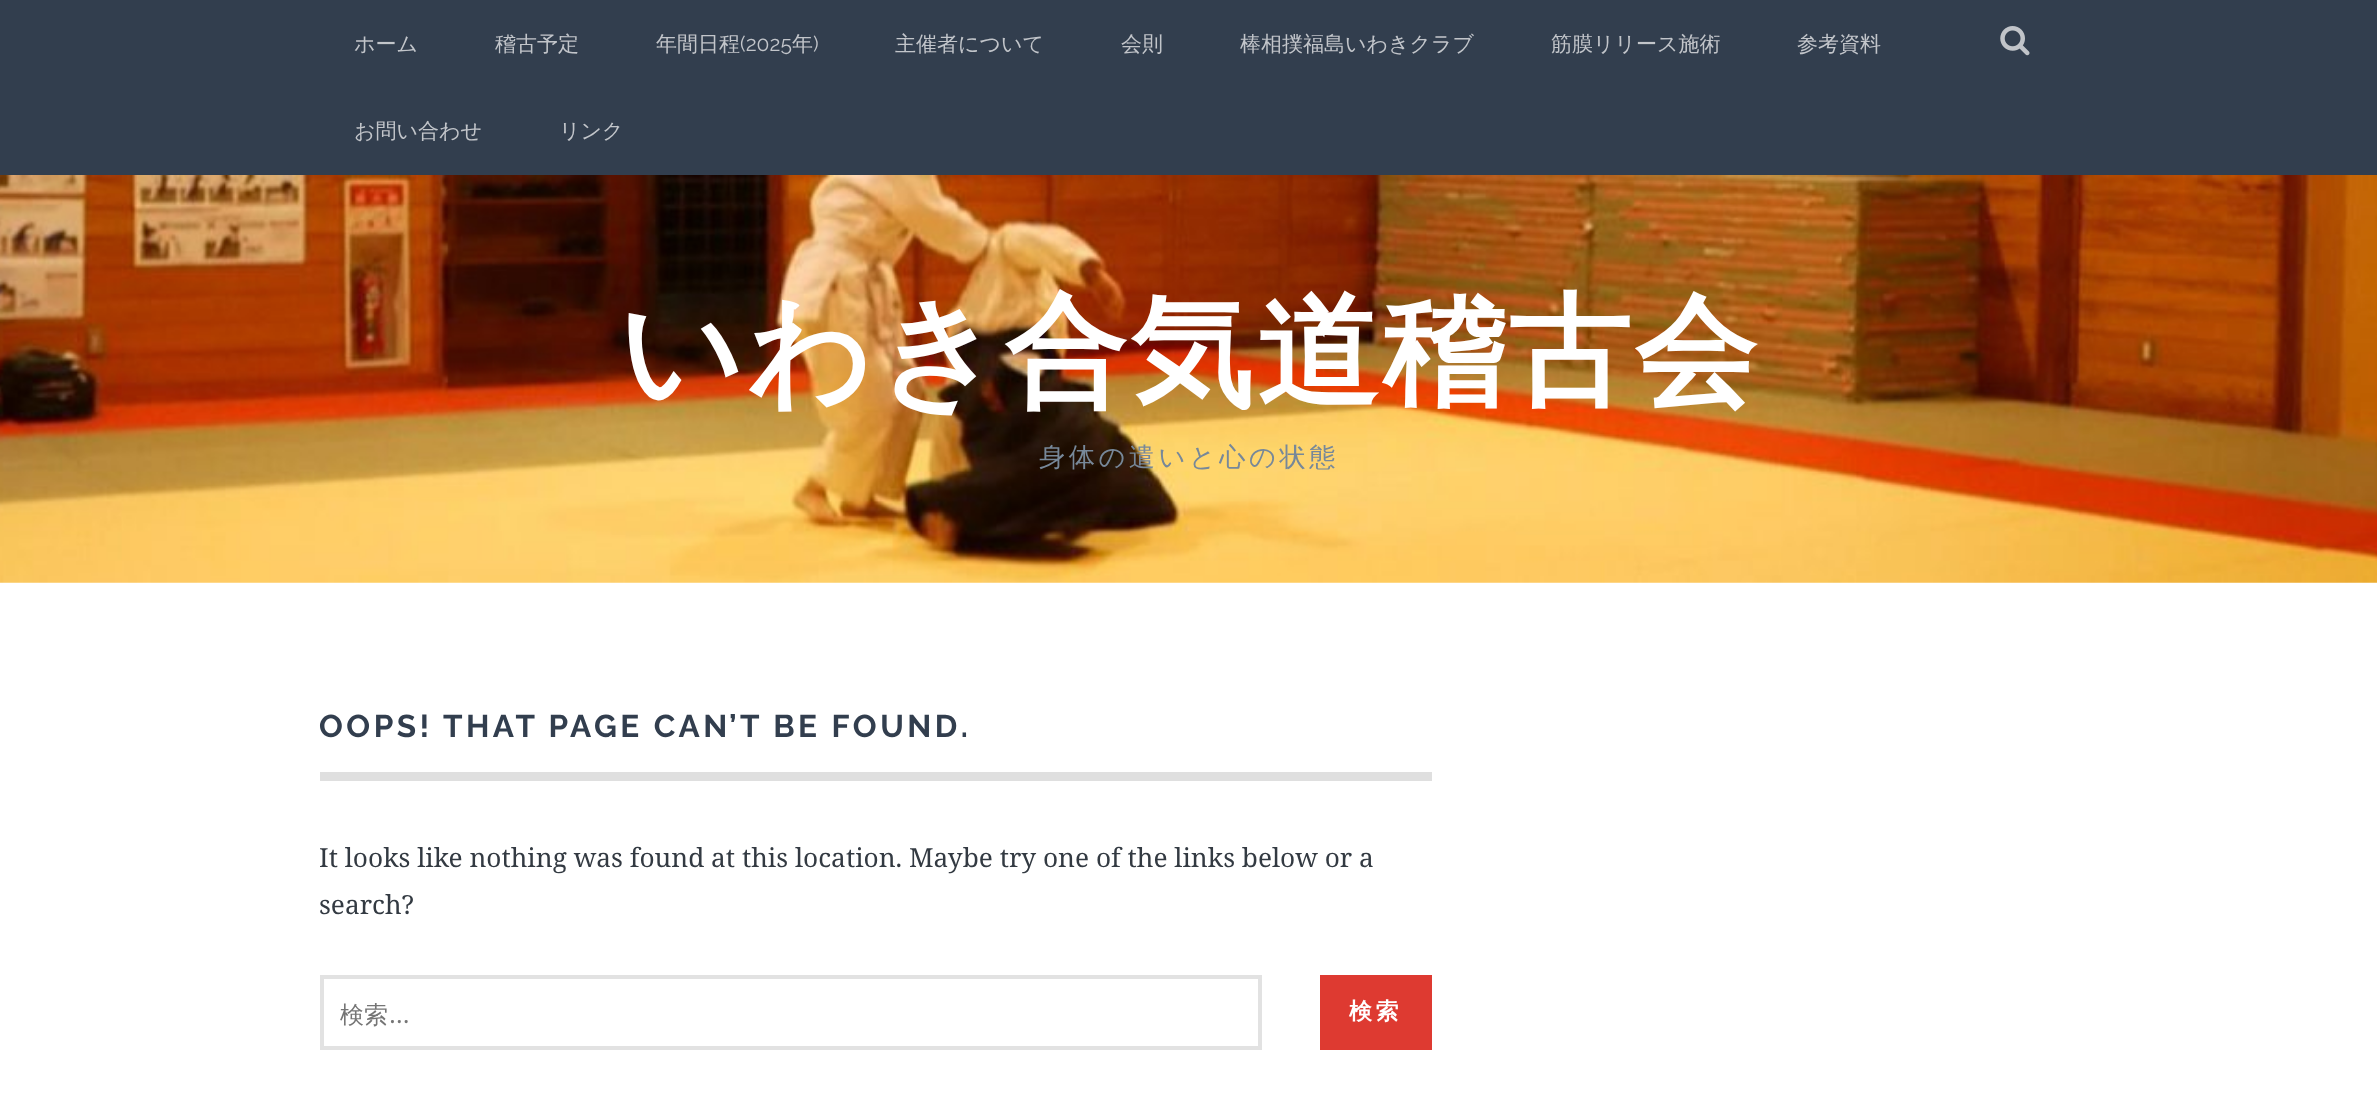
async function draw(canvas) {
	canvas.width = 2377;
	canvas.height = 1095;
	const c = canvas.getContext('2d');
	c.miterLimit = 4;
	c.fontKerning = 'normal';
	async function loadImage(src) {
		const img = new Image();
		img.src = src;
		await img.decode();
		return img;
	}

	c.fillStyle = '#fff';
	c.fillRect(0, 0, 2377, 1095);
	c.fillStyle = '#323e4e';
	c.fillRect(0, 0, 2377, 175);
	c.font = '500 21px WenQuanYi Zen Hei';
	c.fillStyle = '#c2c5ca';
	for (const [text, x, y] of [
		['ホーム', 354, 51],
		['稽古予定', 495, 51],
		['年間日程', 656, 51],
	]) {
		c.fillText(text, x, y);
	}
	c.font = '21px Raleway';
	c.fillText('(2025', 740, 51);
	c.font = '500 21px WenQuanYi Zen Hei';
	c.fillText('年', 792, 51);
	c.font = '21px Raleway';
	c.fillText(')', 813, 51);
	c.font = '500 21px WenQuanYi Zen Hei';
	for (const [text, x, y] of [
		['主催者について', 895, 51],
		['会則', 1121, 51],
		['棒相撲福島いわきクラブ', 1240, 51],
		['筋膜リリース施術', 1551, 51],
		['参考資料', 1797, 51],
		['お問い合わせ', 354, 138],
		['リンク', 559, 138],
	]) {
		c.fillText(text, x, y);
	}
	c.drawImage(await loadImage('img1.png'), 2000, 26, 30, 30);
	c.drawImage(await loadImage('img2.png'), 0, 175, 2377, 408);
	c.letterSpacing = '3.5px';
	c.font = 'bold 122.5px WenQuanYi Zen Hei';
	c.fillStyle = '#fff';
	c.fillText('いわき合気道稽古会', 618, 394);
	c.font = '500 26.25px WenQuanYi Zen Hei';
	c.fillStyle = '#789';
	c.fillText('身体の遣いと心の状態', 1039, 466);
	c.fillStyle = '#dfdfdf';
	c.fillRect(320, 772, 1112, 9);
	c.font = 'bold 31.5px Raleway';
	c.fillStyle = '#323e4e';
	c.fillText('OOPS! THAT PAGE CAN’T BE FOUND.', 319, 737);
	c.letterSpacing = '0px';
	c.font = '26.25px Noto Serif';
	c.fillStyle = '#333a42';
	c.fillText('It looks like nothing was found at this location. Maybe try one of the links below or a', 319, 867);
	c.fillText('search?', 319, 914);
	c.strokeStyle = '#e2e2e2';
	c.lineWidth = 4;
	c.strokeRect(322, 977, 938, 71);
	c.font = '500 24px WenQuanYi Zen Hei';
	c.fillStyle = '#757575';
	c.fillText('検索', 340, 1023);
	c.font = '24px Noto Serif';
	c.fillText('…', 389, 1023);
	c.fillStyle = '#de3a31';
	c.fillRect(1320, 975, 112, 75);
	c.letterSpacing = '3.5px';
	c.font = 'bold 23px WenQuanYi Zen Hei';
	c.fillStyle = '#fff';
	c.fillText('検索', 1349, 1019);
}

draw(document.querySelector('canvas'));
